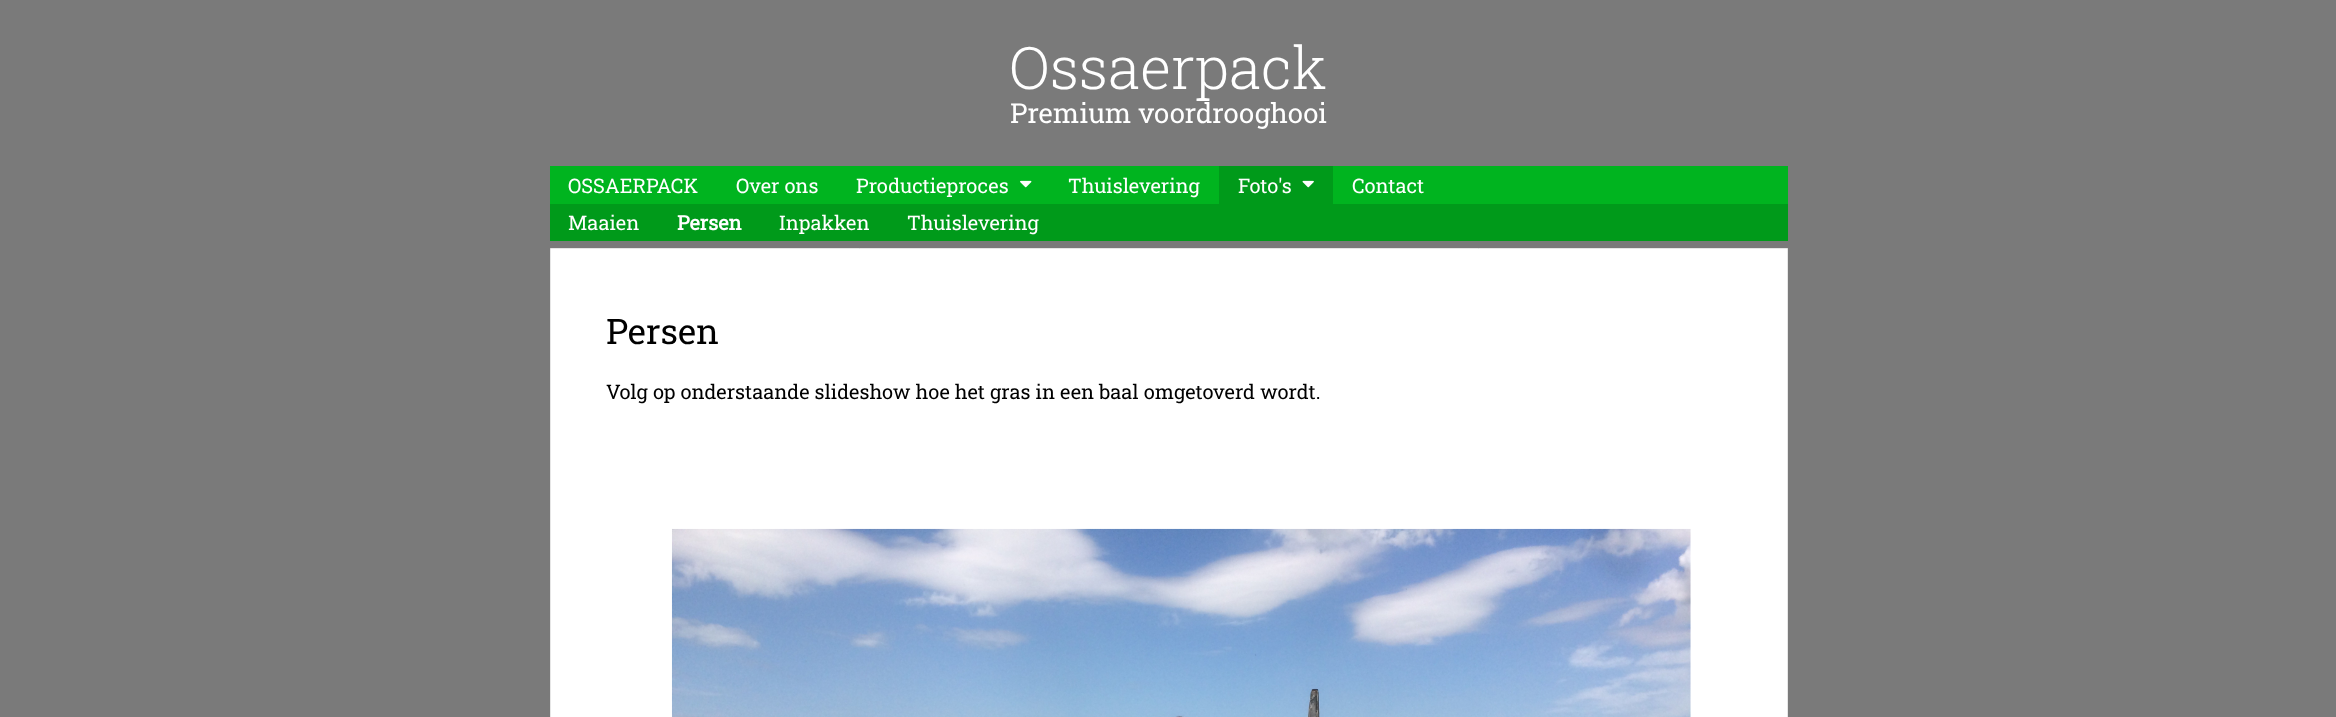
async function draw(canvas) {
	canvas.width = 2336;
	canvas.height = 717;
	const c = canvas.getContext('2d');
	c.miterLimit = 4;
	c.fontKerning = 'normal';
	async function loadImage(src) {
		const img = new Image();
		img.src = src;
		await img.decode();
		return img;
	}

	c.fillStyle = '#7a7a7a';
	c.fillRect(0, 0, 2336, 717);
	c.font = '300 58.75px Roboto Slab';
	c.fillStyle = '#fff';
	c.fillText('Ossaerpack', 1009, 89);
	c.font = '27.5px Roboto Slab';
	c.fillText('Premium voordrooghooi', 1010, 123);
	c.fillStyle = '#00b41f';
	c.fillRect(550, 166, 1238, 38);
	c.fillStyle = '#009a1a';
	c.fillRect(1219, 166, 114, 38);
	c.font = '20px Roboto Slab';
	c.fillStyle = '#fff';
	c.fillText('Foto\'s', 1238, 193);
	c.drawImage(await loadImage('img1.png'), 1302, 180, 12, 8);
	c.fillStyle = '#009a1a';
	c.fillRect(550, 204, 1238, 37);
	c.fillStyle = '#fff';
	c.fillText('Maaien', 568, 230);
	c.font = 'bold 20px Roboto Slab';
	c.fillText('Persen', 677, 230);
	c.font = '20px Roboto Slab';
	for (const [text, x, y] of [
		['Inpakken', 779, 230],
		['Thuislevering', 907, 230],
		['OSSAERPACK', 568, 193],
		['Over ons', 736, 193],
		['Productieproces', 856, 193],
	]) {
		c.fillText(text, x, y);
	}
	c.drawImage(await loadImage('img2.png'), 1020, 180, 12, 8);
	c.fillText('Thuislevering', 1068, 193);
	c.fillText('Contact', 1352, 193);
	c.beginPath();
	c.rect(550.5, 248.5, 1237, 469);
	c.fill();
	c.strokeStyle = '#e6e6e6';
	c.stroke();
	c.font = '35px Roboto Slab';
	c.fillStyle = '#000';
	c.fillText('Persen', 606, 344);
	c.font = '20px Roboto Slab';
	c.fillText('Volg op onderstaande slideshow hoe het gras in een baal omgetoverd wordt.', 606, 399);
	c.drawImage(await loadImage('img3.png'), 671, 528, 1020, 189);
}

draw(document.querySelector('canvas'));
